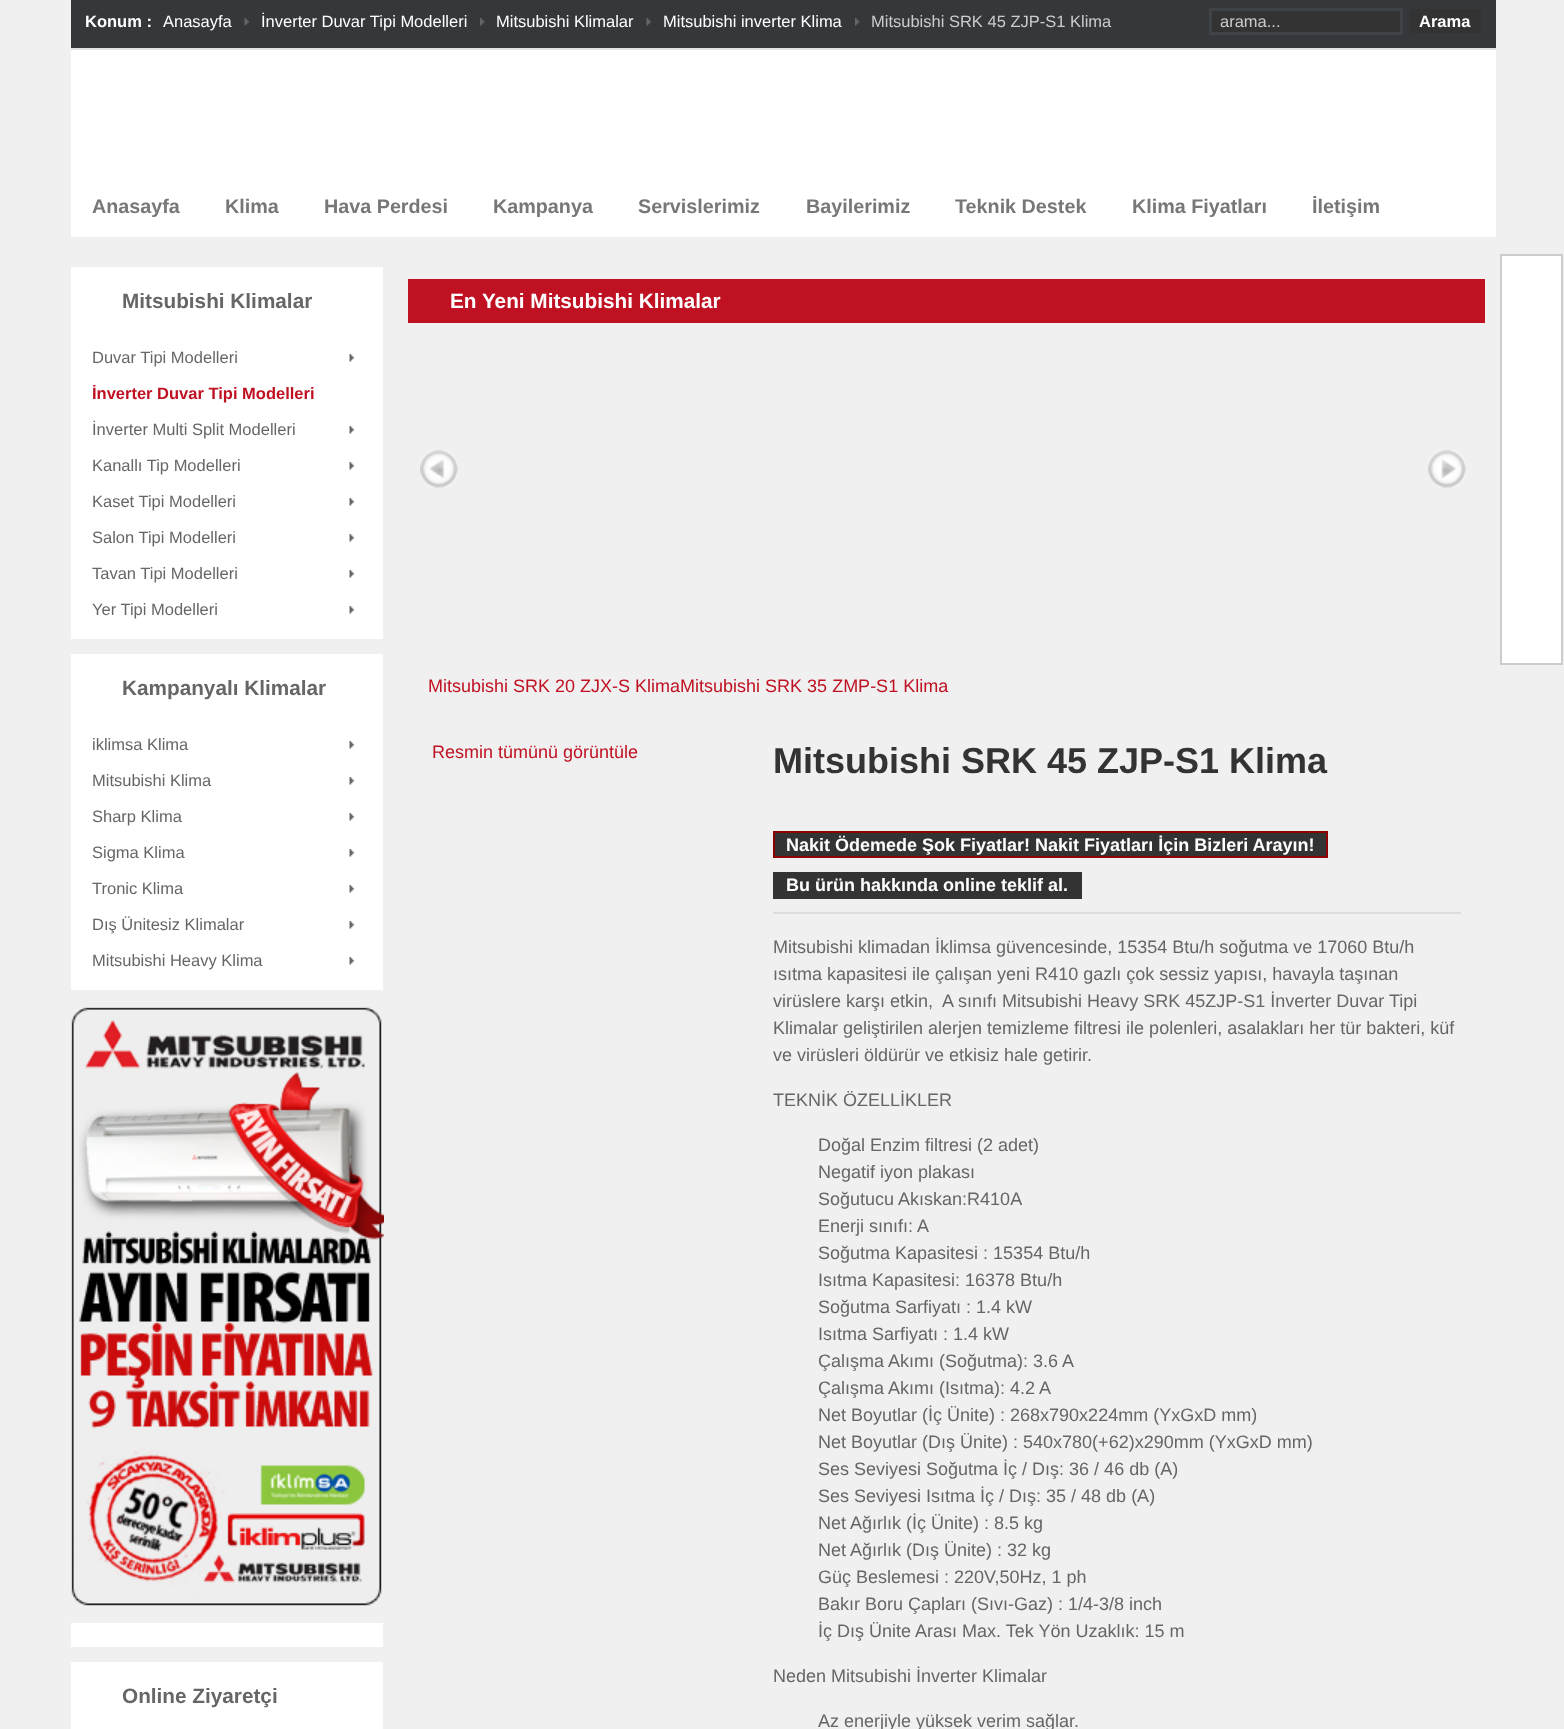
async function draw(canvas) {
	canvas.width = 1564;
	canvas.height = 1729;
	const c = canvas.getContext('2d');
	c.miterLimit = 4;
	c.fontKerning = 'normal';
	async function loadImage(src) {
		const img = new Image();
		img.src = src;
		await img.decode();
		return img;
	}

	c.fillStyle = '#f0f0f0';
	c.fillRect(0, 0, 1564, 1729);
	c.fillStyle = '#34383b';
	c.fillRect(71, 0, 1425, 48);
	c.fillStyle = '#e2e2e2';
	c.fillRect(71, 48, 1425, 2);
	c.font = 'bold 16.5px Liberation Sans';
	c.fillStyle = '#fff';
	c.fillText('Konum :', 85, 27);
	c.font = '16.5px Liberation Sans';
	c.fillText('Anasayfa', 163, 27);
	c.drawImage(await loadImage('img1.png'), 244, 18, 5, 8);
	c.fillText('İnverter Duvar Tipi Modelleri', 261, 27);
	c.drawImage(await loadImage('img2.png'), 480, 18, 5, 8);
	c.fillText('Mitsubishi Klimalar', 496, 27);
	c.drawImage(await loadImage('img3.png'), 646, 18, 5, 8);
	c.fillText('Mitsubishi inverter Klima', 663, 27);
	c.drawImage(await loadImage('img4.png'), 855, 18, 5, 8);
	c.fillStyle = '#ccc';
	c.fillText('Mitsubishi SRK 45 ZJP-S1 Klima', 871, 27);
	c.fillStyle = '#333';
	c.beginPath();
	c.rect(1210.5, 9.5, 191, 24);
	c.fill();
	c.strokeStyle = '#3f4347';
	c.lineWidth = 3;
	c.stroke();
	c.fillStyle = '#ccc';
	c.fillText('arama...', 1220, 27);
	c.fillStyle = '#333';
	c.fillRect(1410, 9, 71, 24);
	c.font = 'bold 16.5px Liberation Sans';
	c.fillStyle = '#fff';
	c.fillText('Arama', 1419, 27);
	c.fillRect(71, 50, 1425, 187);
	c.font = 'bold 19.75px Liberation Sans';
	c.fillStyle = '#777';
	for (const [text, x, y] of [
		['Anasayfa', 92, 213],
		['Klima', 225, 213],
		['Hava Perdesi', 324, 213],
		['Kampanya', 493, 213],
		['Servislerimiz', 638, 213],
		['Bayilerimiz', 806, 213],
		['Teknik Destek', 955, 213],
		['Klima Fiyatları', 1132, 213],
		['İletişim', 1312, 213],
	]) {
		c.fillText(text, x, y);
	}
	c.fillStyle = '#fff';
	c.fillRect(71, 267, 312, 372);
	c.font = 'bold 20.75px Liberation Sans';
	c.fillStyle = '#666';
	c.fillText('Mitsubishi Klimalar', 122, 308);
	c.drawImage(await loadImage('img5.png'), 349, 354, 5, 8);
	c.font = '16.5px Liberation Sans';
	c.fillText('Duvar Tipi Modelleri', 92, 363);
	c.font = 'bold 16.5px Liberation Sans';
	c.fillStyle = '#c01122';
	c.fillText('İnverter Duvar Tipi Modelleri', 92, 399);
	c.drawImage(await loadImage('img5.png'), 349, 426, 5, 8);
	c.font = '16.5px Liberation Sans';
	c.fillStyle = '#666';
	c.fillText('İnverter Multi Split Modelleri', 92, 435);
	c.drawImage(await loadImage('img5.png'), 349, 462, 5, 8);
	c.fillText('Kanallı Tip Modelleri', 92, 471);
	c.drawImage(await loadImage('img5.png'), 349, 498, 5, 8);
	c.fillText('Kaset Tipi Modelleri', 92, 507);
	c.drawImage(await loadImage('img5.png'), 349, 534, 5, 8);
	c.fillText('Salon Tipi Modelleri', 92, 543);
	c.drawImage(await loadImage('img5.png'), 349, 570, 5, 8);
	c.fillText('Tavan Tipi Modelleri', 92, 579);
	c.drawImage(await loadImage('img5.png'), 349, 606, 5, 8);
	c.fillText('Yer Tipi Modelleri', 92, 615);
	c.fillStyle = '#fff';
	c.fillRect(71, 654, 312, 336);
	c.font = 'bold 20.75px Liberation Sans';
	c.fillStyle = '#666';
	c.fillText('Kampanyalı Klimalar', 122, 695);
	c.drawImage(await loadImage('img5.png'), 349, 741, 5, 8);
	c.font = '16.5px Liberation Sans';
	c.fillText('iklimsa Klima', 92, 750);
	c.drawImage(await loadImage('img5.png'), 349, 777, 5, 8);
	c.fillText('Mitsubishi Klima', 92, 786);
	c.drawImage(await loadImage('img5.png'), 349, 813, 5, 8);
	c.fillText('Sharp Klima', 92, 822);
	c.drawImage(await loadImage('img5.png'), 349, 849, 5, 8);
	c.fillText('Sigma Klima', 92, 858);
	c.drawImage(await loadImage('img5.png'), 349, 885, 5, 8);
	c.fillText('Tronic Klima', 92, 894);
	c.drawImage(await loadImage('img5.png'), 349, 921, 5, 8);
	c.fillText('Dış Ünitesiz Klimalar', 92, 930);
	c.drawImage(await loadImage('img5.png'), 349, 957, 5, 8);
	c.fillText('Mitsubishi Heavy Klima', 92, 966);
	c.drawImage(await loadImage('img6.png'), 71, 1007, 313, 599);
	c.fillStyle = '#fff';
	c.fillRect(71, 1623, 312, 24);
	c.fillRect(71, 1662, 312, 67);
	c.font = 'bold 20.75px Liberation Sans';
	c.fillStyle = '#666';
	c.fillText('Online Ziyaretçi', 122, 1703);
	c.fillStyle = '#c01122';
	c.fillRect(408, 279, 1077, 44);
	c.fillStyle = '#fff';
	c.fillText('En Yeni Mitsubishi Klimalar', 450, 308);
	c.drawImage(await loadImage('img7.png'), 420, 450, 38, 38);
	c.drawImage(await loadImage('img8.png'), 1428, 450, 38, 38);
	c.font = '18px Liberation Sans';
	c.fillStyle = '#c01122';
	c.fillText('Mitsubishi SRK 20 ZJX-S KlimaMitsubishi SRK 35 ZMP-S1 Klima', 428, 692);
	c.fillText('Resmin tümünü görüntüle', 432, 758);
	c.font = 'bold 36px Liberation Sans';
	c.fillStyle = '#333';
	c.fillText('Mitsubishi SRK 45 ZJP-S1 Klima', 773, 773);
	c.beginPath();
	c.rect(774, 832, 553, 25);
	c.fill();
	c.strokeStyle = '#8c0101';
	c.lineWidth = 2;
	c.stroke();
	c.font = 'bold 18px Liberation Sans';
	c.fillStyle = '#fff';
	c.fillText('Nakit Ödemede Şok Fiyatlar! Nakit Fiyatları İçin Bizleri Arayın!', 786, 851);
	c.fillStyle = '#333';
	c.fillRect(773, 872, 309, 27);
	c.fillStyle = '#fff';
	c.fillText('Bu ürün hakkında online teklif al.', 786, 891);
	c.fillStyle = '#ddd';
	c.fillRect(773, 912, 688, 2);
	c.font = '18px Liberation Sans';
	c.fillStyle = '#666';
	for (const [text, x, y] of [
		['Mitsubishi klimadan İklimsa güvencesinde, 15354 Btu/h soğutma ve 17060 Btu/h', 773, 953],
		['ısıtma kapasitesi ile çalışan yeni R410 gazlı çok sessiz yapısı, havayla taşınan', 773, 980],
		['virüslere karşı etkin,  A sınıfı Mitsubishi Heavy SRK 45ZJP-S1 İnverter Duvar Tipi', 773, 1007],
		['Klimalar geliştirilen alerjen temizleme filtresi ile polenleri, asalakları her tür bakteri, küf', 773, 1034],
		['ve virüsleri öldürür ve etkisiz hale getirir.', 773, 1061],
		['TEKNİK ÖZELLİKLER', 773, 1106],
		['Doğal Enzim filtresi (2 adet)', 818, 1151],
		['Negatif iyon plakası', 818, 1178],
		['Soğutucu Akıskan:R410A', 818, 1205],
		['Enerji sınıfı: A', 818, 1232],
		['Soğutma Kapasitesi : 15354 Btu/h', 818, 1259],
		['Isıtma Kapasitesi: 16378 Btu/h', 818, 1286],
		['Soğutma Sarfiyatı : 1.4 kW', 818, 1313],
		['Isıtma Sarfiyatı : 1.4 kW', 818, 1340],
		['Çalışma Akımı (Soğutma): 3.6 A', 818, 1367],
		['Çalışma Akımı (Isıtma): 4.2 A', 818, 1394],
		['Net Boyutlar (İç Ünite) : 268x790x224mm (YxGxD mm)', 818, 1421],
		['Net Boyutlar (Dış Ünite) : 540x780(+62)x290mm (YxGxD mm)', 818, 1448],
		['Ses Seviyesi Soğutma İç / Dış: 36 / 46 db (A)', 818, 1475],
		['Ses Seviyesi Isıtma İç / Dış: 35 / 48 db (A)', 818, 1502],
		['Net Ağırlık (İç Ünite) : 8.5 kg', 818, 1529],
		['Net Ağırlık (Dış Ünite) : 32 kg', 818, 1556],
		['Güç Beslemesi : 220V,50Hz, 1 ph', 818, 1583],
		['Bakır Boru Çapları (Sıvı-Gaz) : 1/4-3/8 inch', 818, 1610],
		['İç Dış Ünite Arası Max. Tek Yön Uzaklık: 15 m', 818, 1637],
		['Neden Mitsubishi İnverter Klimalar', 773, 1682],
		['Az enerjiyle yüksek verim sağlar.', 818, 1727],
	]) {
		c.fillText(text, x, y);
	}
	c.fillStyle = '#fff';
	c.beginPath();
	c.rect(1501, 255, 61, 409);
	c.fill();
	c.strokeStyle = '#ccc';
	c.stroke();
}

draw(document.querySelector('canvas'));
